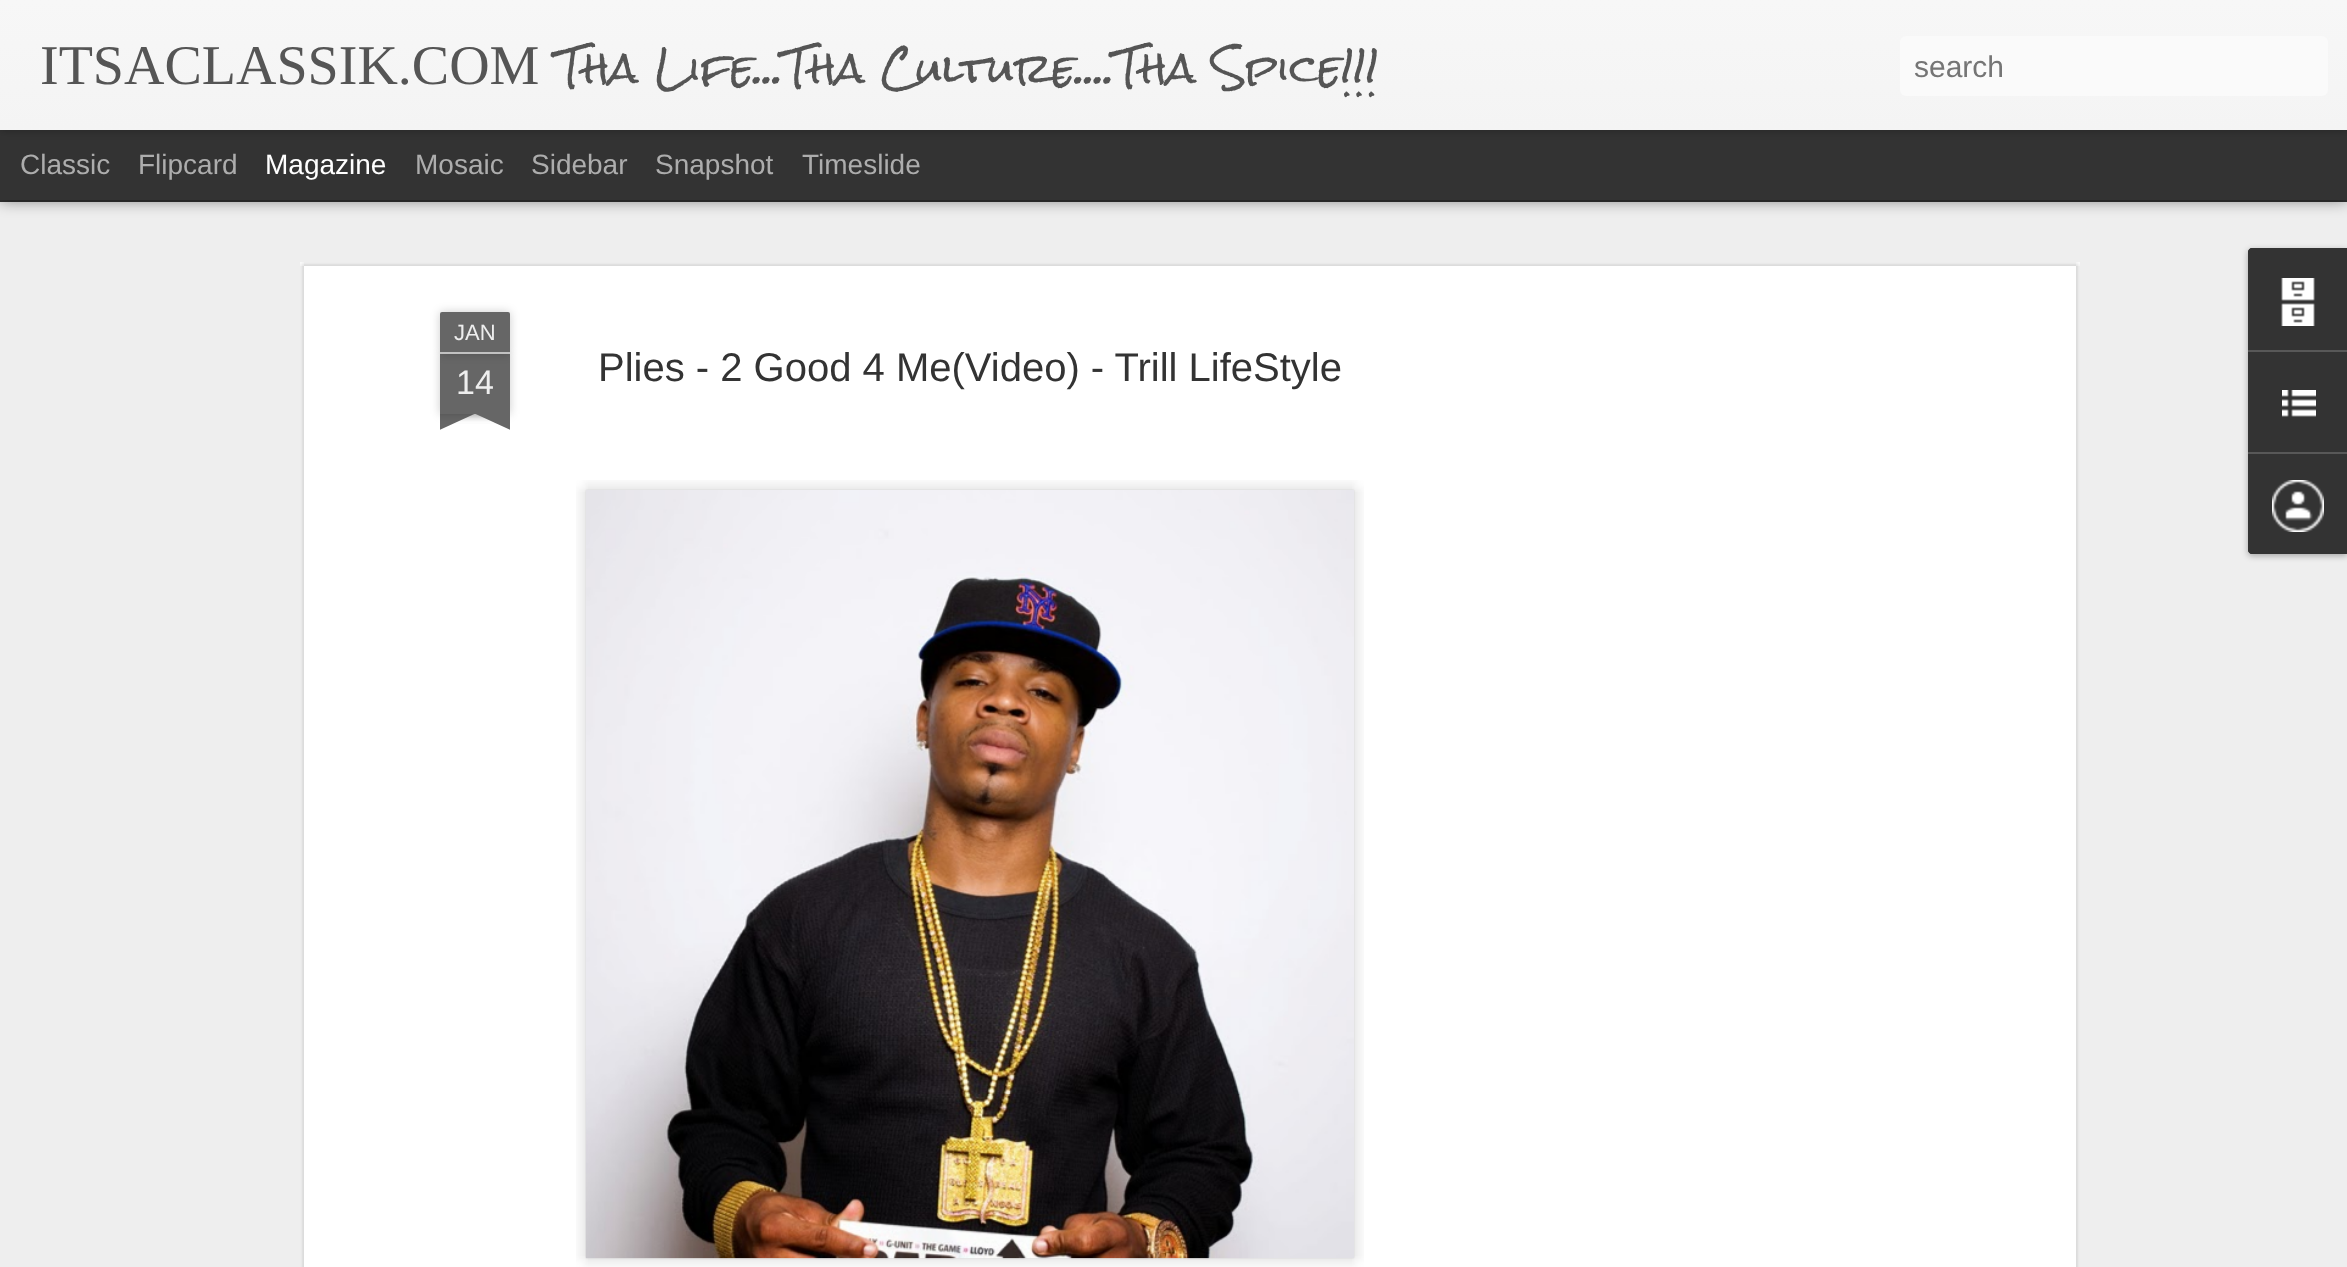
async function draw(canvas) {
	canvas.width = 2347;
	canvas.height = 1267;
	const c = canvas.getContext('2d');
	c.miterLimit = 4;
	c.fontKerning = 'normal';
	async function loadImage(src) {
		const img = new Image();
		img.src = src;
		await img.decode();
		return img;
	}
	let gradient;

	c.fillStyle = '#333';
	c.fillRect(0, 0, 2347, 1267);
	c.fillStyle = '#eee';
	c.fillRect(0, 202, 2347, 1065);
	c.fillStyle = '#00000080';
	c.filter = 'blur(8px)';
	c.beginPath();
	c.rect(0, 130, 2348, 70);
	c.fill();
	c.filter = 'none';
	c.fillStyle = '#333';
	c.fillRect(0, 130, 2347, 70);
	c.fillStyle = '#0000004d';
	c.filter = 'blur(5px)';
	c.beginPath();
	c.rect(0, 0, 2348, 130);
	c.fill();
	c.filter = 'none';
	gradient = c.createLinearGradient(0, 0, 0, 130);
	gradient.addColorStop(0, '#f7f7f7');
	gradient.addColorStop(1, '#f4f4f4');
	c.fillStyle = gradient;
	c.fillRect(0, 0, 2347, 130);
	c.font = '56px Liberation Serif';
	c.fillStyle = '#555';
	c.fillText('ITSACLASSIK.COM', 40, 84);
	c.font = '40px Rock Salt';
	c.fillText('Tha Life...Tha Culture....Tha Spice!!!', 557, 84);
	c.fillStyle = '#fafafa';
	c.beginPath();
	c.roundRect(1900, 36, 428, 60, 6);
	c.fill();
	c.font = '30px Liberation Sans';
	c.fillStyle = '#757575';
	c.fillText('search', 1914, 77);
	c.font = '28px Liberation Sans';
	c.fillStyle = '#adadad';
	c.fillText('Classic', 20, 174);
	c.fillText('Flipcard', 138, 174);
	c.fillStyle = '#fff';
	c.fillText('Magazine', 265, 174);
	c.fillStyle = '#adadad';
	for (const [text, x, y] of [
		['Mosaic', 415, 174],
		['Sidebar', 531, 174],
		['Snapshot', 655, 174],
		['Timeslide', 802, 174],
	]) {
		c.fillText(text, x, y);
	}
	c.fillStyle = '#fff';
	c.fillRect(300, 262, 1780, 1005);
	c.drawImage(await loadImage('img1.png'), 300, 262, 1780, 1005);
	c.fillStyle = '#00000033';
	c.filter = 'blur(5px)';
	c.beginPath();
	c.rect(440, 354, 70, 60);
	c.fill();
	c.filter = 'none';
	c.fillStyle = '#666';
	c.fillRect(440, 354, 70, 60);
	c.fillStyle = '#00000033';
	c.filter = 'blur(5px)';
	c.beginPath();
	c.roundRect(440, 312, 70, 42, 2);
	c.fill();
	c.filter = 'none';
	c.fillStyle = '#666';
	c.beginPath();
	c.roundRect(440, 312, 70, 42, [2, 2, 0, 0]);
	c.fill();
	c.fillStyle = '#c2c2c2';
	c.fillRect(440, 352, 70, 2);
	c.font = '22px Liberation Sans';
	c.fillStyle = '#eee';
	c.fillText('JAN', 454, 340);
	c.font = '34px Liberation Sans';
	c.fillText('14', 456, 394);
	c.save();
	c.beginPath();
	c.rect(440, 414, 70, 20);
	c.clip();
	c.fillStyle = '#00000033';
	c.filter = 'blur(5px)';
	c.beginPath();
	c.rect(422, 394, 100, 20);
	c.fill();
	c.filter = 'none';
	c.restore();
	c.save();
	c.beginPath();
	c.rect(440, 414, 70, 20);
	c.clip();
	c.fillStyle = '#666';
	c.beginPath();
	c.moveTo(422, 416);
	c.lineTo(513, 374);
	c.lineTo(522, 392);
	c.lineTo(431, 434);
	c.closePath();
	c.fill();
	c.restore();
	c.save();
	c.beginPath();
	c.rect(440, 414, 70, 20);
	c.clip();
	c.fillStyle = '#00000033';
	c.filter = 'blur(5px)';
	c.beginPath();
	c.rect(428, 394, 100, 20);
	c.fill();
	c.filter = 'none';
	c.restore();
	c.save();
	c.beginPath();
	c.rect(440, 414, 70, 20);
	c.clip();
	c.fillStyle = '#666';
	c.beginPath();
	c.moveTo(437, 374);
	c.lineTo(528, 416);
	c.lineTo(519, 434);
	c.lineTo(428, 392);
	c.closePath();
	c.fill();
	c.restore();
	c.font = '40px Liberation Sans';
	c.fillStyle = '#333';
	c.fillText('Plies - 2 Good 4 Me(Video) - Trill LifeStyle', 598, 381);
	c.drawImage(await loadImage('img2.png'), 576, 480, 788, 787);
	c.drawImage(await loadImage('img3.png'), 585, 577, 669, 683);
	c.fillStyle = '#0000004d';
	c.filter = 'blur(3px)';
	c.beginPath();
	c.roundRect(2248, 250, 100, 306, 4);
	c.fill();
	c.filter = 'none';
	c.fillStyle = '#333';
	c.beginPath();
	c.moveTo(2252, 248);
	c.lineTo(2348, 248);
	c.lineTo(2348, 554);
	c.lineTo(2252, 554);
	c.bezierCurveTo(2250, 554, 2248, 552, 2248, 550);
	c.lineTo(2248, 252);
	c.bezierCurveTo(2248, 250, 2250, 248, 2252, 248);
	c.closePath();
	c.fill();
	c.beginPath();
	c.moveTo(2252, 248);
	c.lineTo(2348, 248);
	c.lineTo(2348, 350);
	c.lineTo(2248, 350);
	c.lineTo(2248, 252);
	c.bezierCurveTo(2248, 250, 2250, 248, 2252, 248);
	c.closePath();
	c.fill();
	c.drawImage(await loadImage('img4.png'), 2281, 278, 34, 48);
	c.fillStyle = '#585858';
	c.fillRect(2248, 350, 99, 2);
	c.drawImage(await loadImage('img5.png'), 2282, 390, 34, 27);
	c.fillStyle = '#333';
	c.beginPath();
	c.moveTo(2248, 452);
	c.lineTo(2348, 452);
	c.lineTo(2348, 554);
	c.lineTo(2252, 554);
	c.bezierCurveTo(2250, 554, 2248, 552, 2248, 550);
	c.closePath();
	c.fill();
	c.fillStyle = '#585858';
	c.fillRect(2248, 452, 99, 2);
	c.drawImage(await loadImage('img6.png'), 2272, 480, 52, 52);
}

draw(document.querySelector('canvas'));
